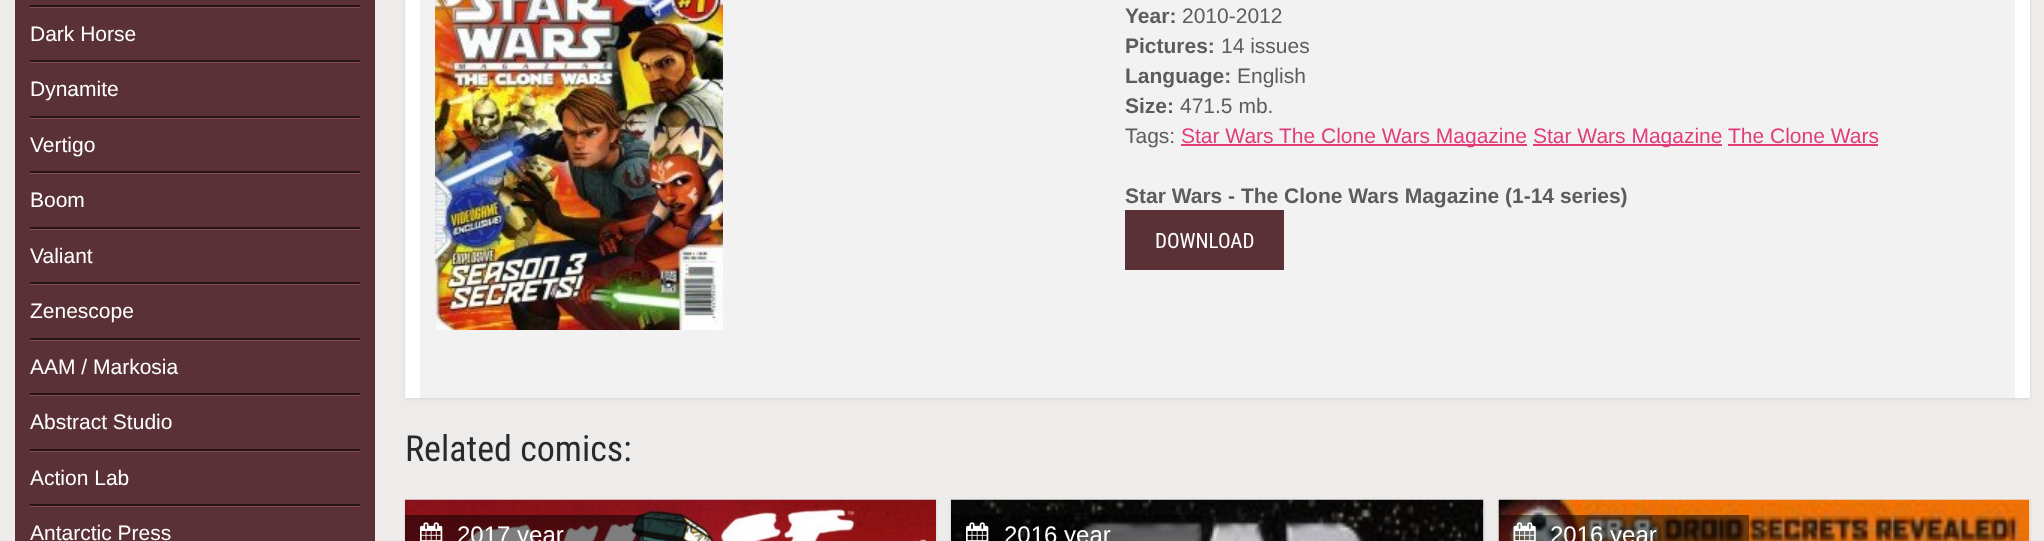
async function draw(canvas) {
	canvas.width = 2044;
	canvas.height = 541;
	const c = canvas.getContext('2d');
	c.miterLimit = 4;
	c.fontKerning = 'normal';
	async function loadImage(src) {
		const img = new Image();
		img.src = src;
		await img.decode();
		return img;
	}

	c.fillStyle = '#eeebeb';
	c.fillRect(0, 0, 2044, 541);
	for (const [x, y, w, h, color] of [
		[15, 0, 360, 541, '#593136'],
		[30, 7, 330, 1, '#874d55'],
		[30, 5, 330, 2, '#251517'],
		[30, 62, 330, 1, '#874d55'],
		[30, 60, 330, 2, '#251517'],
	]) {
		c.fillStyle = color;
		c.fillRect(x, y, w, h);
	}
	c.font = '21px Liberation Sans';
	c.fillStyle = '#fff';
	c.fillText('Dark Horse', 30, 41);
	c.fillStyle = '#874d55';
	c.fillRect(30, 118, 330, 1);
	c.fillStyle = '#251517';
	c.fillRect(30, 116, 330, 2);
	c.fillStyle = '#fff';
	c.fillText('Dynamite', 30, 96);
	c.fillStyle = '#874d55';
	c.fillRect(30, 173, 330, 1);
	c.fillStyle = '#251517';
	c.fillRect(30, 171, 330, 2);
	c.fillStyle = '#fff';
	c.fillText('Vertigo', 30, 152);
	c.fillStyle = '#874d55';
	c.fillRect(30, 229, 330, 1);
	c.fillStyle = '#251517';
	c.fillRect(30, 227, 330, 2);
	c.fillStyle = '#fff';
	c.fillText('Boom', 30, 207);
	c.fillStyle = '#874d55';
	c.fillRect(30, 284, 330, 1);
	c.fillStyle = '#251517';
	c.fillRect(30, 282, 330, 2);
	c.fillStyle = '#fff';
	c.fillText('Valiant', 30, 263);
	c.fillStyle = '#874d55';
	c.fillRect(30, 340, 330, 1);
	c.fillStyle = '#251517';
	c.fillRect(30, 338, 330, 2);
	c.fillStyle = '#fff';
	c.fillText('Zenescope', 30, 318);
	c.fillStyle = '#874d55';
	c.fillRect(30, 395, 330, 1);
	c.fillStyle = '#251517';
	c.fillRect(30, 393, 330, 2);
	c.fillStyle = '#fff';
	c.fillText('AAM / Markosia', 30, 374);
	c.fillStyle = '#874d55';
	c.fillRect(30, 451, 330, 1);
	c.fillStyle = '#251517';
	c.fillRect(30, 449, 330, 2);
	c.fillStyle = '#fff';
	c.fillText('Abstract Studio', 30, 429);
	c.fillStyle = '#874d55';
	c.fillRect(30, 506, 330, 1);
	c.fillStyle = '#251517';
	c.fillRect(30, 504, 330, 2);
	c.fillStyle = '#fff';
	c.fillText('Action Lab', 30, 485);
	c.fillText('Antarctic Press', 30, 540);
	c.fillStyle = '#0000001a';
	c.filter = 'blur(1.5px)';
	c.beginPath();
	c.rect(405, -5, 1625, 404);
	c.fill();
	c.filter = 'none';
	c.fillStyle = '#fff';
	c.fillRect(405, 0, 1625, 398);
	c.fillStyle = '#f2f2f2';
	c.fillRect(420, 0, 1595, 398);
	c.drawImage(await loadImage('img1.png'), 435, 0, 288, 330);
	c.font = 'bold 21px Liberation Sans';
	c.fillStyle = '#5c5c5c';
	c.fillText('Year:', 1125, 23);
	c.font = '21px Liberation Sans';
	c.fillText('2010-2012', 1182, 23);
	c.font = 'bold 21px Liberation Sans';
	c.fillText('Pictures:', 1125, 53);
	c.font = '21px Liberation Sans';
	c.fillText('14 issues', 1221, 53);
	c.font = 'bold 21px Liberation Sans';
	c.fillText('Language:', 1125, 83);
	c.font = '21px Liberation Sans';
	c.fillText('English', 1237, 83);
	c.font = 'bold 21px Liberation Sans';
	c.fillText('Size:', 1125, 113);
	c.font = '21px Liberation Sans';
	c.fillText('471.5 mb.', 1180, 113);
	c.fillText('Tags:', 1125, 143);
	c.fillStyle = '#e13d7a';
	c.fillRect(1181, 144, 346, 2);
	c.fillText('Star Wars The Clone Wars Magazine', 1181, 143);
	c.fillRect(1533, 144, 189, 2);
	c.fillText('Star Wars Magazine', 1533, 143);
	c.fillText('The Clone Wars', 1728, 143);
	c.fillRect(1728, 144, 150, 2);
	c.font = 'bold 21px Liberation Sans';
	c.fillStyle = '#5c5c5c';
	c.fillText('Star Wars - The Clone Wars Magazine (1-14 series)', 1125, 203);
	c.fillStyle = '#593136';
	c.fillRect(1125, 210, 159, 60);
	c.font = '21px Roboto Condensed';
	c.fillStyle = '#fff';
	c.fillText('DOWNLOAD', 1155, 248);
	c.font = '36px Roboto Condensed';
	c.fillStyle = '#2a2a2a';
	c.fillText('Related comics:', 405, 461);
	c.fillStyle = '#0000001a';
	c.filter = 'blur(1.5px)';
	c.beginPath();
	c.rect(405, 501, 531, 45);
	c.fill();
	c.filter = 'none';
	c.drawImage(await loadImage('img2.png'), 405, 499, 531, 42);
	c.fillStyle = '#00000080';
	c.fillRect(405, 515, 239, 26);
	c.drawImage(await loadImage('img3.png'), 420, 522, 23, 19);
	c.font = '24px Liberation Sans';
	c.fillStyle = '#fff';
	c.fillText('2017 year', 457, 543);
	c.fillStyle = '#0000001a';
	c.filter = 'blur(1.5px)';
	c.beginPath();
	c.rect(951, 501, 533, 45);
	c.fill();
	c.filter = 'none';
	c.fillStyle = '#fff';
	c.fillRect(1483, 500, 1, 41);
	c.drawImage(await loadImage('img4.png'), 951, 499, 533, 42);
	c.fillStyle = '#00000080';
	c.fillRect(951, 515, 252, 26);
	c.drawImage(await loadImage('img5.png'), 966, 522, 23, 19);
	c.fillStyle = '#fff';
	c.fillText('2016 year', 1004, 543);
	c.fillStyle = '#0000001a';
	c.filter = 'blur(1.5px)';
	c.beginPath();
	c.rect(1499, 501, 531, 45);
	c.fill();
	c.filter = 'none';
	c.fillStyle = '#fff';
	c.fillRect(2029, 500, 1, 41);
	c.drawImage(await loadImage('img6.png'), 1498, 499, 532, 42);
	c.fillStyle = '#00000080';
	c.fillRect(1499, 515, 250, 26);
	c.drawImage(await loadImage('img7.png'), 1513, 522, 23, 19);
	c.fillStyle = '#fff';
	c.fillText('2016 year', 1550, 543);
}

draw(document.querySelector('canvas'));
